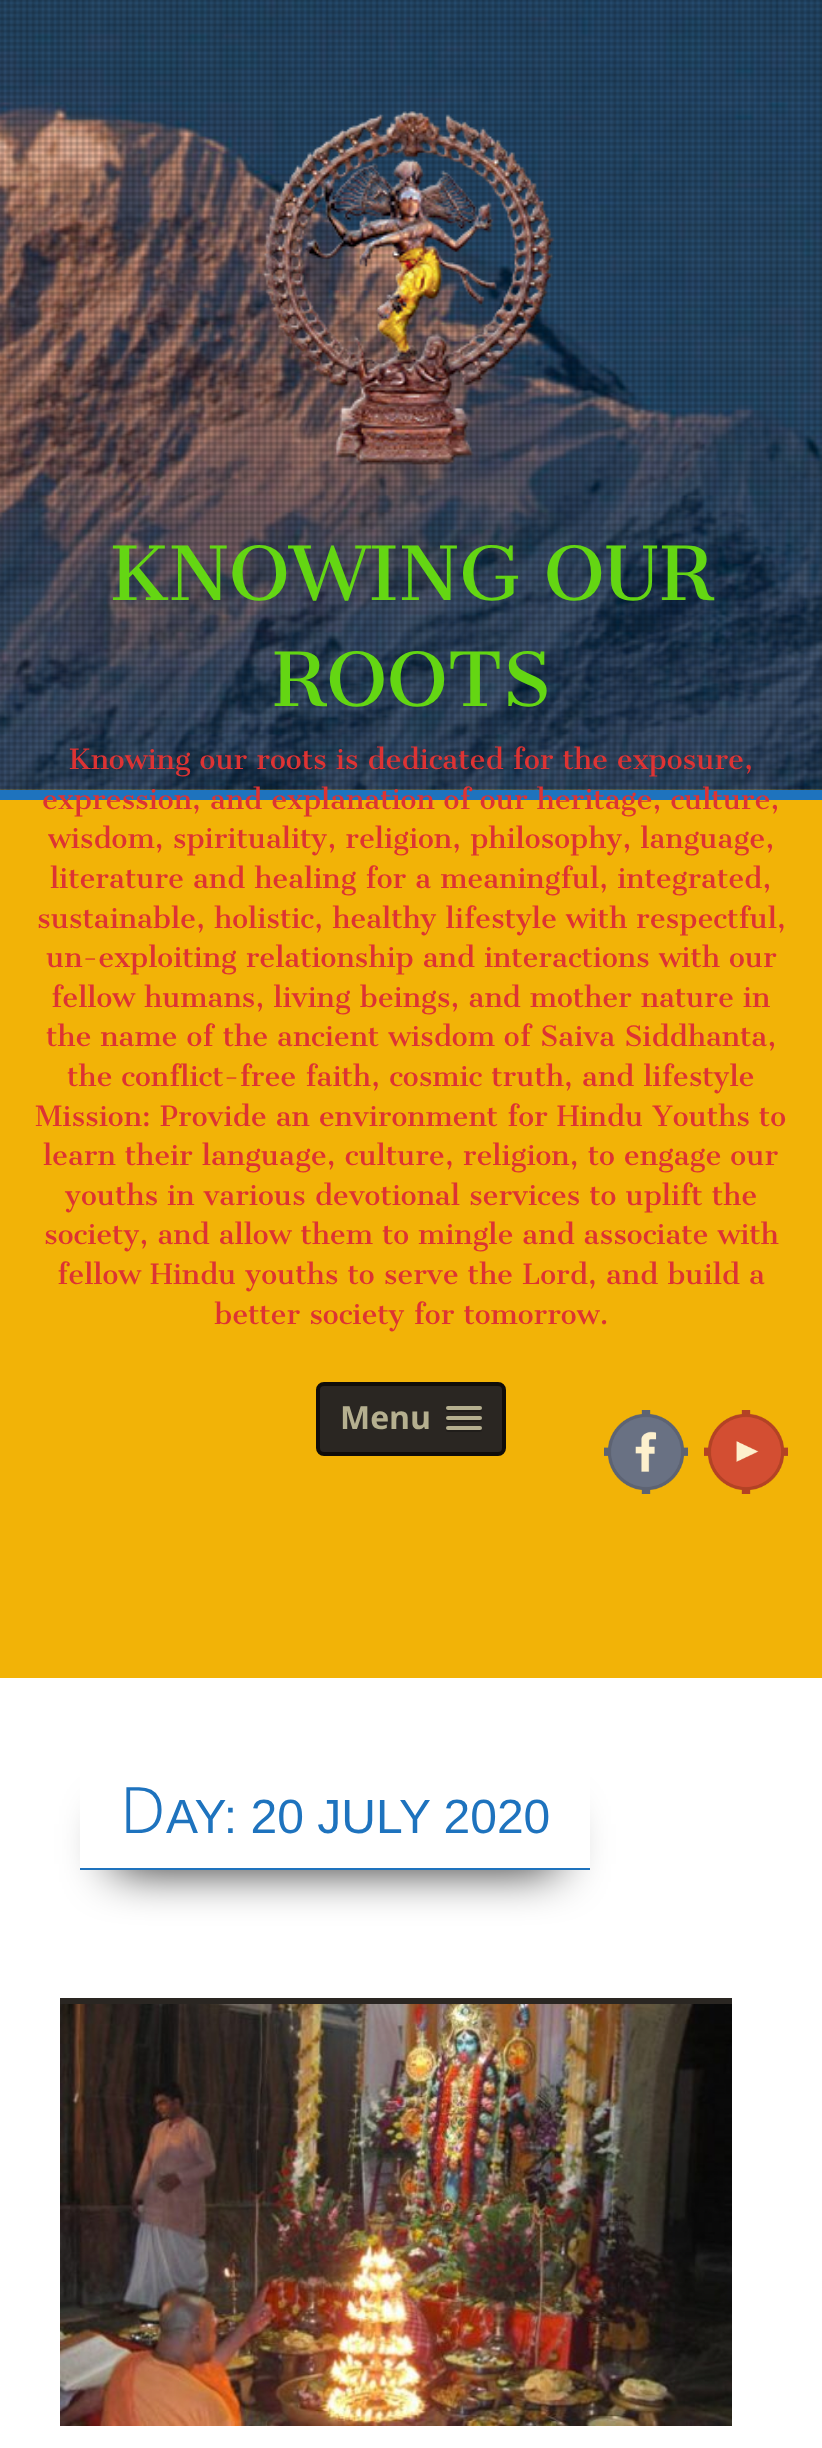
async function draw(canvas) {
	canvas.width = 822;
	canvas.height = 2448;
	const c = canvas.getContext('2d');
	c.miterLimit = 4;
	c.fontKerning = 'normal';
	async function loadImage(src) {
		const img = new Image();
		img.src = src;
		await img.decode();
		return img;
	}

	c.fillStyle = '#f2b307';
	c.fillRect(0, 0, 822, 2448);
	c.drawImage(await loadImage('img1.png'), 0, 0, 822, 790);
	c.fillStyle = '#1e73be';
	c.fillRect(0, 790, 822, 10);
	c.drawImage(await loadImage('img2.png'), 0, 0, 822, 790);
	c.drawImage(await loadImage('img3.png'), 262, 111, 293, 354);
	c.font = '96px Sree Krushnadevaraya';
	c.fillStyle = '#64d613';
	c.fillText('KNOWING OUR', 108, 600);
	c.fillText('ROOTS', 272, 706);
	c.font = '36px Sree Krushnadevaraya';
	c.fillStyle = '#d33';
	for (const [text, x, y] of [
		['Knowing our roots is dedicated for the exposure,', 68, 769],
		['expression, and explanation of our heritage, culture,', 42, 809],
		['wisdom, spirituality, religion, philosophy, language,', 48, 848],
		['literature and healing for a meaningful, integrated,', 50, 888],
		['sustainable, holistic, healthy lifestyle with respectful,', 37, 928],
		['un-exploiting relationship and interactions with our', 46, 967],
		['fellow humans, living beings, and mother nature in', 51, 1007],
		['the name of the ancient wisdom of Saiva Siddhanta,', 46, 1046],
		['the conflict-free faith, cosmic truth, and lifestyle', 67, 1086],
		['Mission: Provide an environment for Hindu Youths to', 35, 1126],
		['learn their language, culture, religion, to engage our', 43, 1165],
		['youths in various devotional services to uplift the', 65, 1205],
		['society, and allow them to mingle and associate with', 44, 1244],
		['fellow Hindu youths to serve the Lord, and build a', 57, 1284],
		['better society for tomorrow.', 214, 1324],
	]) {
		c.fillText(text, x, y);
	}
	c.drawImage(await loadImage('img4.png'), 604, 1410, 84, 84);
	c.drawImage(await loadImage('img5.png'), 704, 1410, 84, 84);
	c.fillStyle = '#2a2622';
	c.beginPath();
	c.roundRect(318, 1384, 186, 70, 6);
	c.fill();
	c.strokeStyle = '#100d0a';
	c.lineWidth = 4;
	c.stroke();
	c.font = 'bold 32px Open Sans';
	c.fillStyle = '#b5af8f';
	c.fillText('Menu', 340, 1429);
	c.fillStyle = '#201d1a';
	c.beginPath();
	c.moveTo(446.5, 1409);
	c.bezierCurveTo(444, 1413, 453, 1412, 453.5, 1412);
	c.lineTo(474.5, 1412);
	c.bezierCurveTo(475, 1412, 484, 1413, 481.5, 1409);
	c.bezierCurveTo(481.5, 1409.5, 480.5, 1410, 480, 1410);
	c.lineTo(448, 1410);
	c.bezierCurveTo(447.5, 1410, 446.5, 1409.5, 446.5, 1409);
	c.closePath();
	c.fill();
	c.fillStyle = '#b5af8f';
	c.beginPath();
	c.roundRect(446, 1406, 36, 4, 2);
	c.fill();
	c.fillStyle = '#201d1a';
	c.beginPath();
	c.moveTo(446.5, 1419);
	c.bezierCurveTo(444, 1423, 453, 1422, 453.5, 1422);
	c.lineTo(474.5, 1422);
	c.bezierCurveTo(475, 1422, 484, 1423, 481.5, 1419);
	c.bezierCurveTo(481.5, 1419.5, 480.5, 1420, 480, 1420);
	c.lineTo(448, 1420);
	c.bezierCurveTo(447.5, 1420, 446.5, 1419.5, 446.5, 1419);
	c.closePath();
	c.fill();
	c.fillStyle = '#b5af8f';
	c.beginPath();
	c.roundRect(446, 1416, 36, 4, 2);
	c.fill();
	c.fillStyle = '#201d1a';
	c.beginPath();
	c.moveTo(446.5, 1429);
	c.bezierCurveTo(444, 1433, 453, 1432, 453.5, 1432);
	c.lineTo(474.5, 1432);
	c.bezierCurveTo(475, 1432, 484, 1433, 481.5, 1429);
	c.bezierCurveTo(481.5, 1429.5, 480.5, 1430, 480, 1430);
	c.lineTo(448, 1430);
	c.bezierCurveTo(447.5, 1430, 446.5, 1429.5, 446.5, 1429);
	c.closePath();
	c.fill();
	c.fillStyle = '#b5af8f';
	c.beginPath();
	c.roundRect(446, 1426, 36, 4, 2);
	c.fill();
	c.fillStyle = '#fff';
	c.fillRect(0, 1678, 822, 770);
	c.save();
	c.beginPath();
	c.moveTo(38, 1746);
	c.lineTo(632, 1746);
	c.lineTo(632, 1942);
	c.lineTo(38, 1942);
	c.closePath();
	c.moveTo(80, 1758);
	c.lineTo(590, 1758);
	c.lineTo(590, 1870);
	c.lineTo(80, 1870);
	c.closePath();
	c.clip('evenodd');
	c.fillStyle = '#000';
	c.filter = 'blur(25px)';
	c.beginPath();
	c.rect(114, 1822, 442, 44);
	c.fill();
	c.filter = 'none';
	c.restore();
	c.fillStyle = '#1e73be';
	c.fillRect(80, 1868, 510, 2);
	c.font = '300 64px Noto Sans';
	c.fillText('D', 120, 1833);
	c.font = '48px Liberation Sans';
	c.fillText('AY: 20 JULY 2020', 166, 1833);
	c.fillStyle = '#2a2622';
	c.fillRect(60, 1998, 672, 6);
	c.drawImage(await loadImage('img6.png'), 60, 2004, 672, 422);
}

draw(document.querySelector('canvas'));
